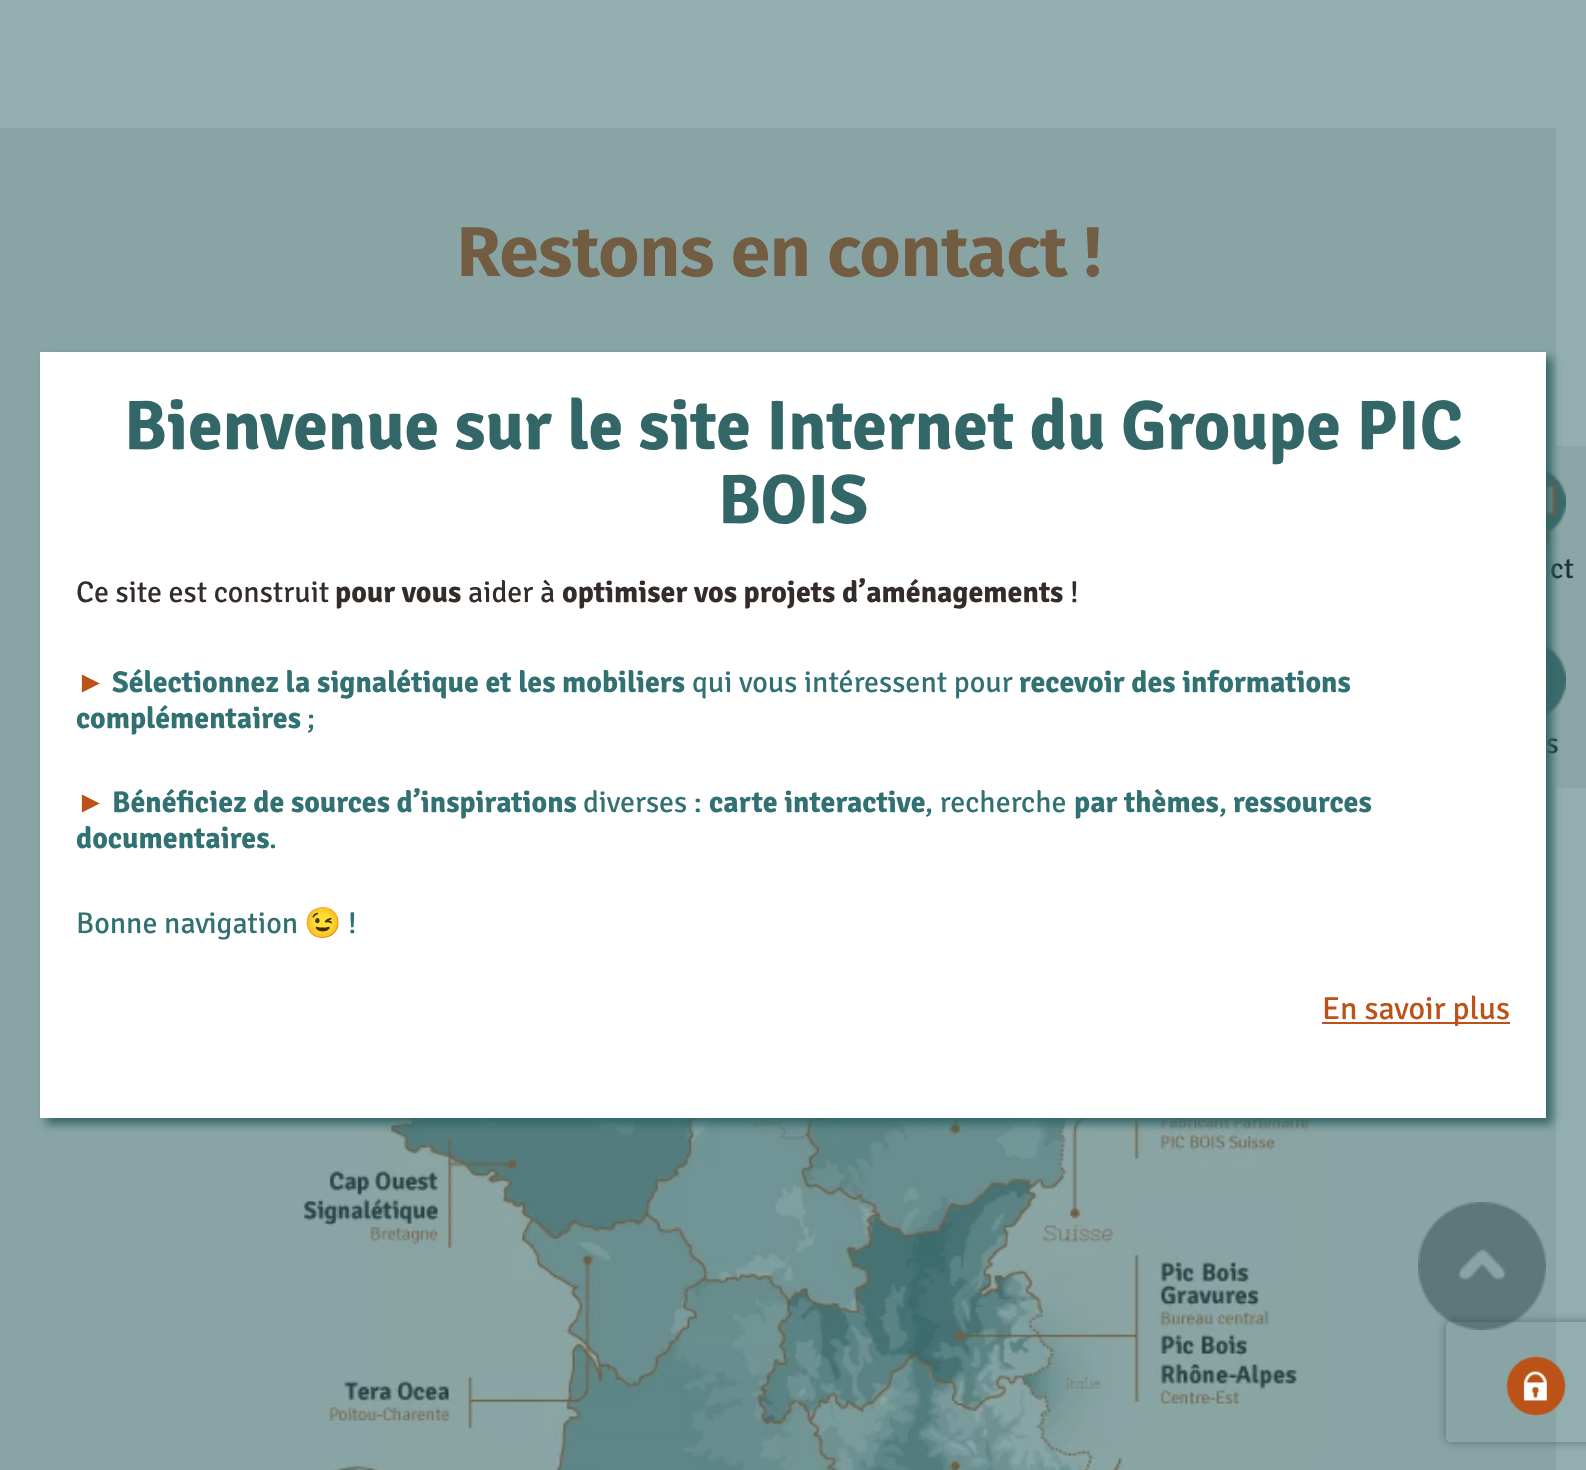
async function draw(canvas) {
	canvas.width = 1586;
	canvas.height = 1470;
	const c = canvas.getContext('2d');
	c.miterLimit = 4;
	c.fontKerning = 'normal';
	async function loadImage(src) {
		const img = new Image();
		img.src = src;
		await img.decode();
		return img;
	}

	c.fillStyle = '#93aeae';
	c.fillRect(0, 0, 1586, 1470);
	c.fillStyle = '#89a4a4';
	c.fillRect(0, 128, 1556, 1342);
	c.font = 'bold 70.5px Fira Sans';
	c.fillStyle = '#725d42';
	c.fillText('Restons en contact !', 457, 276);
	c.drawImage(await loadImage('img1.png'), 303, 1118, 1016, 352);
	c.fillStyle = '#8ba6a6';
	c.fillRect(1556, 446, 30, 342);
	c.drawImage(await loadImage('img2.png'), 1546, 468, 20, 78);
	c.font = '29px Signika';
	c.fillStyle = '#1b3636';
	c.fillText('ct', 1550, 578);
	c.fillStyle = '#93aeae';
	c.fillRect(1546, 612, 4, 8);
	c.drawImage(await loadImage('img3.png'), 1546, 643, 20, 74);
	c.fillStyle = '#1b3636';
	c.fillText('s', 1546, 753);
	c.fillStyle = '#366';
	c.filter = 'blur(5px)';
	c.beginPath();
	c.rect(46, 358, 1506, 766);
	c.fill();
	c.filter = 'none';
	c.fillStyle = '#fff';
	c.fillRect(40, 352, 1506, 766);
	c.font = 'bold 70px Signika';
	c.fillStyle = '#366';
	c.fillText('Bienvenue sur le site Internet du Groupe PIC', 124, 449);
	c.fillText('BOIS', 718, 523);
	c.font = '30px Signika';
	c.fillStyle = '#332c28';
	c.fillText('Ce site est construit', 76, 602);
	c.font = 'bold 30px Signika';
	c.fillText('pour vous', 335, 602);
	c.font = '30px Signika';
	c.fillText('aider à', 468, 602);
	c.font = 'bold 30px Signika';
	c.fillText('optimiser vos projets d’aménagements', 562, 602);
	c.font = '30px Signika';
	c.fillText('!', 1070, 602);
	c.font = 'bold 30px Liberation Sans';
	c.fillStyle = '#bc5217';
	c.fillText('►', 76, 692);
	c.font = 'bold 30px Signika';
	c.fillStyle = '#327172';
	c.fillText('Sélectionnez la signalétique et les mobiliers', 112, 692);
	c.font = '30px Signika';
	c.fillText('qui vous intéressent pour', 692, 692);
	c.font = 'bold 30px Signika';
	c.fillText('recevoir des informations', 1019, 692);
	c.fillText('complémentaires', 76, 728);
	c.font = '30px Signika';
	c.fillText(';', 307, 728);
	c.font = 'bold 30px Liberation Sans';
	c.fillStyle = '#bc5217';
	c.fillText('►', 76, 812);
	c.font = 'bold 30px Signika';
	c.fillStyle = '#327172';
	c.fillText('Bénéficiez de sources d’inspirations', 112, 812);
	c.font = '30px Signika';
	c.fillText('diverses :', 583, 812);
	c.font = 'bold 30px Signika';
	c.fillText('carte interactive', 709, 812);
	c.font = '30px Signika';
	c.fillText(', recherche', 925, 812);
	c.font = 'bold 30px Signika';
	c.fillText('par thèmes', 1074, 812);
	c.font = '30px Signika';
	c.fillText(',', 1219, 812);
	c.font = 'bold 30px Signika';
	c.fillText('ressources', 1233, 812);
	c.fillText('documentaires', 76, 848);
	c.font = '30px Signika';
	c.fillText('.', 269, 848);
	c.fillText('Bonne navigation', 76, 933);
	c.font = '30px Noto Color Emoji';
	c.fillText('😉', 304, 933);
	c.font = '30px Signika';
	c.fillText('!', 348, 933);
	c.fillStyle = '#bc5217';
	c.fillRect(1322, 1022, 188, 2);
	c.font = '32px Signika';
	c.fillText('En savoir plus', 1322, 1019);
	c.save();
	c.beginPath();
	c.moveTo(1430, 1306);
	c.lineTo(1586, 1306);
	c.lineTo(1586, 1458);
	c.lineTo(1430, 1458);
	c.closePath();
	c.moveTo(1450, 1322);
	c.lineTo(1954, 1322);
	c.bezierCurveTo(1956, 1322, 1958, 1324, 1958, 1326);
	c.lineTo(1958, 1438);
	c.bezierCurveTo(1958, 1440, 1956, 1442, 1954, 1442);
	c.lineTo(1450, 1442);
	c.bezierCurveTo(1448, 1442, 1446, 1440, 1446, 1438);
	c.lineTo(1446, 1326);
	c.bezierCurveTo(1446, 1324, 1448, 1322, 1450, 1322);
	c.closePath();
	c.clip('evenodd');
	c.fillStyle = '#577272';
	c.filter = 'blur(5px)';
	c.beginPath();
	c.roundRect(1446, 1322, 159, 120, 4);
	c.fill();
	c.filter = 'none';
	c.restore();
	c.drawImage(await loadImage('img4.png'), 1418, 1202, 128, 128);
	c.drawImage(await loadImage('img5.png'), 1506, 1356, 60, 61);
}

draw(document.querySelector('canvas'));
